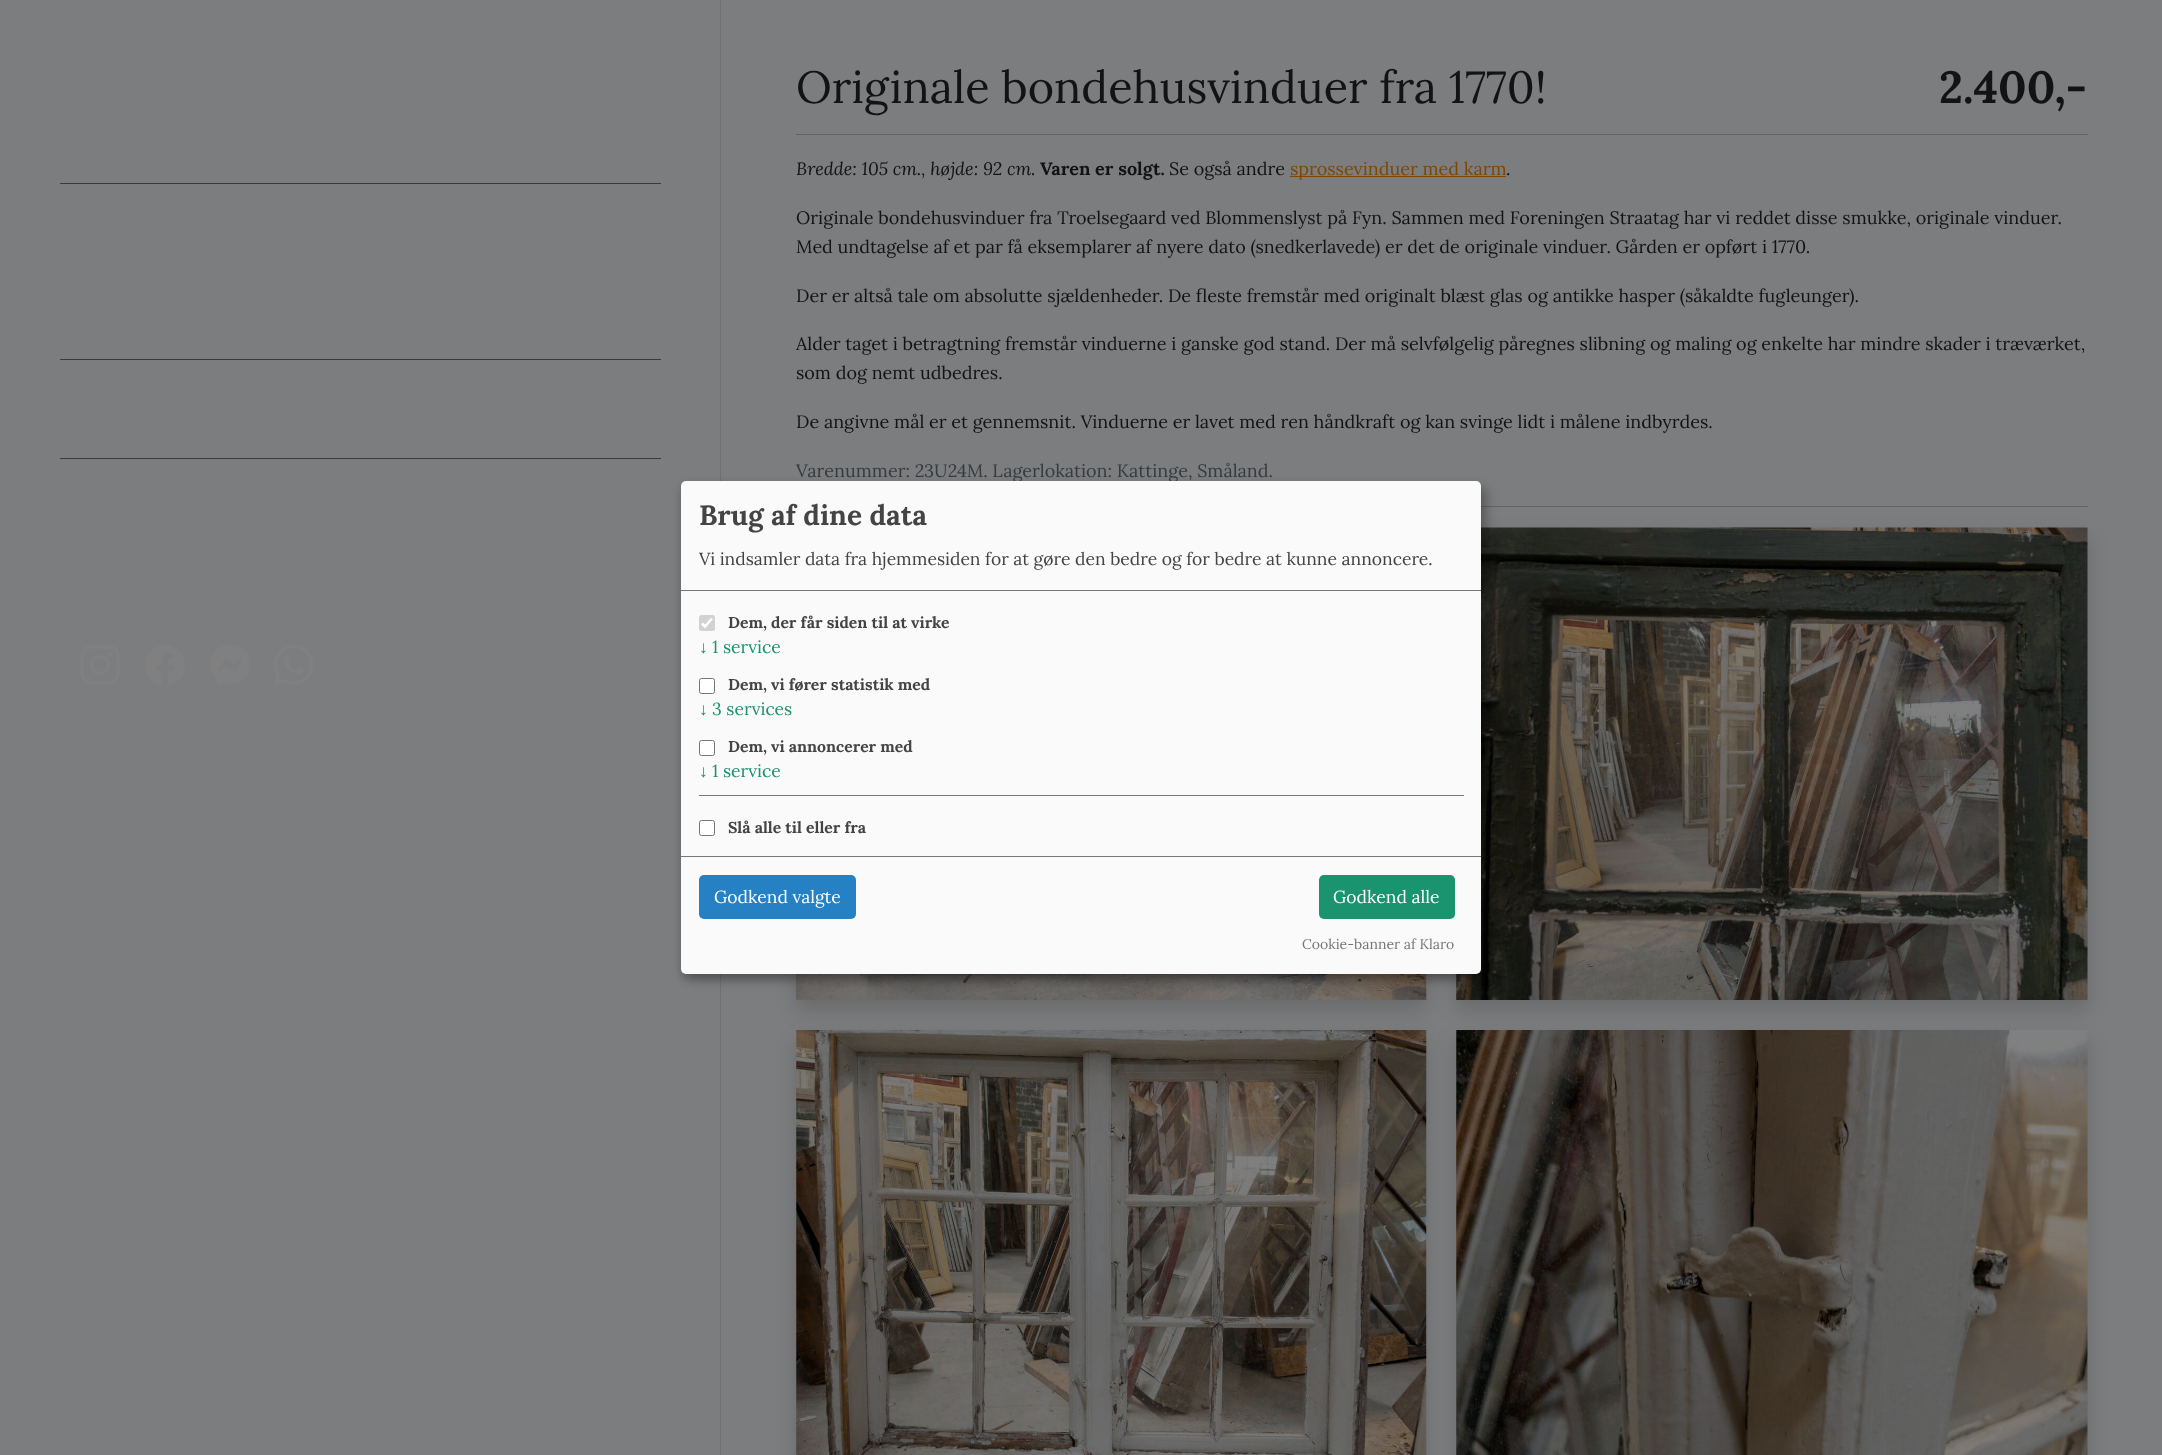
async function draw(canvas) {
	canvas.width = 2162;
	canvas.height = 1455;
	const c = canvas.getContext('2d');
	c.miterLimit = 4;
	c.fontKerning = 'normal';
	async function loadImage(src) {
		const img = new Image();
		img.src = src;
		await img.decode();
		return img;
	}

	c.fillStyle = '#7c7d7e';
	c.fillRect(0, 0, 2162, 1455);
	for (const [x, y, w, h, color] of [
		[720, 0, 1, 1455, '#707071'],
		[60, 183, 601, 1, '#363b3f'],
		[60, 359, 601, 1, '#363b3f'],
		[60, 458, 601, 1, '#363b3f'],
	]) {
		c.fillStyle = color;
		c.fillRect(x, y, w, h);
	}
	c.drawImage(await loadImage('img1.png'), 80, 645, 40, 40);
	c.drawImage(await loadImage('img2.png'), 145, 645, 40, 40);
	c.drawImage(await loadImage('img3.png'), 210, 645, 40, 40);
	c.drawImage(await loadImage('img4.png'), 274, 645, 39, 40);
	c.font = '45px Lora';
	c.fillStyle = '#111315';
	c.fillText('Originale bondehusvinduer fra 1770!', 796, 103);
	c.font = 'bold 45px Lora';
	c.fillText('2.400,-', 1939, 103);
	c.fillStyle = '#616364';
	c.fillRect(796, 134, 1292, 1);
	c.font = 'italic 18px Lora';
	c.fillStyle = '#111315';
	c.fillText('Bredde: 105 cm., højde: 92 cm.', 796, 175);
	c.font = 'bold 18px Lora';
	c.fillText('Varen er solgt.', 1040, 175);
	c.font = '18px Lora';
	c.fillText('Se også andre', 1169, 175);
	c.fillStyle = '#804600';
	c.fillRect(1290, 176, 216, 1);
	c.fillText('sprossevinduer med karm', 1290, 175);
	c.fillStyle = '#111315';
	for (const [text, x, y] of [
		['.', 1506, 175],
		['Originale bondehusvinduer fra Troelsegaard ved Blommenslyst på Fyn. Sammen med Foreningen Straatag har vi reddet disse smukke, originale vinduer.', 796, 224],
		['Med undtagelse af et par få eksemplarer af nyere dato (snedkerlavede) er det de originale vinduer. Gården er opført i 1770.', 796, 253],
		['Der er altså tale om absolutte sjældenheder. De fleste fremstår med originalt blæst glas og antikke hasper (såkaldte fugleunger).', 796, 302],
		['Alder taget i betragtning fremstår vinduerne i ganske god stand. Der må selvfølgelig påregnes slibning og maling og enkelte har mindre skader i træværket,', 796, 350],
		['som dog nemt udbedres.', 796, 379],
		['De angivne mål er et gennemsnit. Vinduerne er lavet med ren håndkraft og kan svinge lidt i målene indbyrdes.', 796, 428],
	]) {
		c.fillText(text, x, y);
	}
	c.fillStyle = '#363b3f';
	c.fillText('Varenummer: 23U24M. Lagerlokation: Kattinge, Småland.', 796, 477);
	c.fillStyle = '#616364';
	c.fillRect(1481, 506, 607, 1);
	c.fillStyle = '#00000026';
	c.filter = 'blur(10px)';
	c.beginPath();
	c.rect(796, 538, 630, 472);
	c.fill();
	c.filter = 'none';
	c.drawImage(await loadImage('img5.png'), 796, 974, 631, 26);
	c.filter = 'blur(10px)';
	c.beginPath();
	c.rect(1456, 538, 632, 472);
	c.fill();
	c.filter = 'none';
	c.drawImage(await loadImage('img6.png'), 1456, 527, 632, 473);
	c.filter = 'blur(10px)';
	c.beginPath();
	c.rect(796, 1040, 630, 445);
	c.fill();
	c.filter = 'none';
	c.drawImage(await loadImage('img7.png'), 796, 1030, 631, 425);
	c.filter = 'blur(10px)';
	c.beginPath();
	c.rect(1456, 1040, 632, 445);
	c.fill();
	c.filter = 'none';
	c.drawImage(await loadImage('img8.png'), 1456, 1030, 632, 425);
	c.fillStyle = '#00000030';
	c.filter = 'blur(6px)';
	c.beginPath();
	c.roundRect(688, 488, 800, 492, 5);
	c.fill();
	c.filter = 'none';
	c.fillStyle = '#00000033';
	c.filter = 'blur(4px)';
	c.beginPath();
	c.roundRect(681, 486, 800, 493, 5);
	c.fill();
	c.filter = 'none';
	c.fillStyle = '#fafafa';
	c.beginPath();
	c.roundRect(681, 481, 800, 493, 5);
	c.fill();
	c.fillStyle = '#777';
	c.fillRect(681, 590, 800, 1);
	c.font = 'bold 28px Lora';
	c.fillStyle = '#444';
	c.fillText('Brug af dine data', 699, 525);
	c.font = '17.5px Lora';
	c.fillText('Vi indsamler data fra hjemmesiden for at gøre den bedre og for bedre at kunne annoncere.', 699, 565);
	c.fillStyle = '#d2d2d2';
	c.beginPath();
	c.roundRect(699, 615, 16, 16, 2.5);
	c.fill();
	c.beginPath();
	c.moveTo(702, 623.5);
	c.lineTo(705, 626.5);
	c.lineTo(712, 618.5);
	c.strokeStyle = '#fff';
	c.lineWidth = 2.6;
	c.stroke();
	c.font = 'bold 15.75px Lora';
	c.fillStyle = '#444';
	c.fillText('Dem, der får siden til at virke', 728, 628);
	c.font = '17.5px Liberation Serif';
	c.fillStyle = '#1a936f';
	c.fillText('↓', 699, 653);
	c.font = '17.5px Lora';
	c.fillText('1 service', 712, 653);
	c.fillStyle = '#fff';
	c.beginPath();
	c.roundRect(699.5, 678.5, 15, 15, 2);
	c.fill();
	c.strokeStyle = '#767676';
	c.lineWidth = 1;
	c.stroke();
	c.font = 'bold 15.75px Lora';
	c.fillStyle = '#444';
	c.fillText('Dem, vi fører statistik med', 728, 690);
	c.font = '17.5px Liberation Serif';
	c.fillStyle = '#1a936f';
	c.fillText('↓', 699, 715);
	c.font = '17.5px Lora';
	c.fillText('3 services', 712, 715);
	c.fillStyle = '#fff';
	c.beginPath();
	c.roundRect(699.5, 740.5, 15, 15, 2);
	c.fill();
	c.stroke();
	c.font = 'bold 15.75px Lora';
	c.fillStyle = '#444';
	c.fillText('Dem, vi annoncerer med', 728, 752);
	c.font = '17.5px Liberation Serif';
	c.fillStyle = '#1a936f';
	c.fillText('↓', 699, 777);
	c.font = '17.5px Lora';
	c.fillText('1 service', 712, 777);
	c.fillStyle = '#777';
	c.fillRect(699, 795, 765, 1);
	c.fillStyle = '#fff';
	c.beginPath();
	c.roundRect(699.5, 820.5, 15, 15, 2);
	c.fill();
	c.stroke();
	c.font = 'bold 15.75px Lora';
	c.fillStyle = '#444';
	c.fillText('Slå alle til eller fra', 728, 833);
	c.fillStyle = '#777';
	c.fillRect(681, 856, 800, 1);
	c.fillStyle = '#2581c4';
	c.beginPath();
	c.roundRect(699, 875, 157, 44, 5);
	c.fill();
	c.font = '17.5px Lora';
	c.fillStyle = '#fff';
	c.fillText('Godkend valgte', 714, 903);
	c.fillStyle = '#1a936f';
	c.beginPath();
	c.roundRect(1319, 875, 136, 44, 5);
	c.fill();
	c.fillStyle = '#fff';
	c.fillText('Godkend alle', 1333, 903);
	c.font = '14px Lora';
	c.fillStyle = '#777';
	c.fillText('Cookie-banner af Klaro', 1302, 949);
}

draw(document.querySelector('canvas'));
